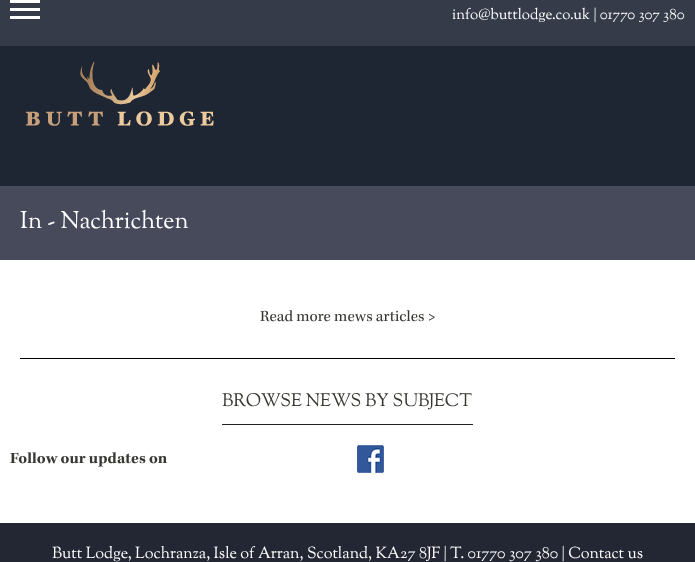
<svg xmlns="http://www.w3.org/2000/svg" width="695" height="562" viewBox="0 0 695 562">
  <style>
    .t1 { font: 500 15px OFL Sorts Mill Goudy; fill: #fff; }
    .t2 { font: 500 24px OFL Sorts Mill Goudy; fill: #fff; }
    .t3 { font: 16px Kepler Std; fill: #373832; }
    .t4 { font: 500 18px OFL Sorts Mill Goudy; fill: #373832; }
    .t5 { font: bold 16px Kepler Std; fill: #373832; }
    .t6 { font: 500 16px OFL Sorts Mill Goudy; fill: #fff; }
  </style>
  <rect width="100%" height="100%" fill="#fff"/>
  <rect x="0" y="46" width="695" height="140" fill="#1e2533"/>
  <rect x="0" y="0" width="695" height="46" fill="#353b48"/>
  <rect x="10" y="0" width="30" height="3" fill="#fff"/>
  <rect x="10" y="8" width="30" height="3" fill="#fff"/>
  <rect x="10" y="16" width="30" height="3" fill="#fff"/>
  <text x="452" y="19" class="t1">info@buttlodge.co.uk | 01770 307 380</text>
  <image x="25" y="61" width="189" height="65" href="images/1.png"/>
  <rect x="0" y="186" width="695" height="74" fill="#464a5b"/>
  <text x="20" y="228" class="t2">In - Nachrichten</text>
  <text x="260" y="321" class="t3">Read more mews articles &gt;</text>
  <rect x="20" y="358" width="655" height="1" fill="#000"/>
  <rect x="222" y="424" width="251" height="1" fill="#222"/>
  <text x="222" y="406" class="t4">BROWSE NEWS BY SUBJECT</text>
  <text x="10" y="463" class="t5">Follow our updates on</text>
  <image x="357" y="445" width="27" height="28" href="images/2.png"/>
  <rect x="0" y="523" width="695" height="39" fill="#222733"/>
  <text x="52" y="558" class="t6">Butt Lodge, Lochranza, Isle of Arran, Scotland, KA27 8JF | T. 01770 307 380 | Contact us</text>
</svg>
